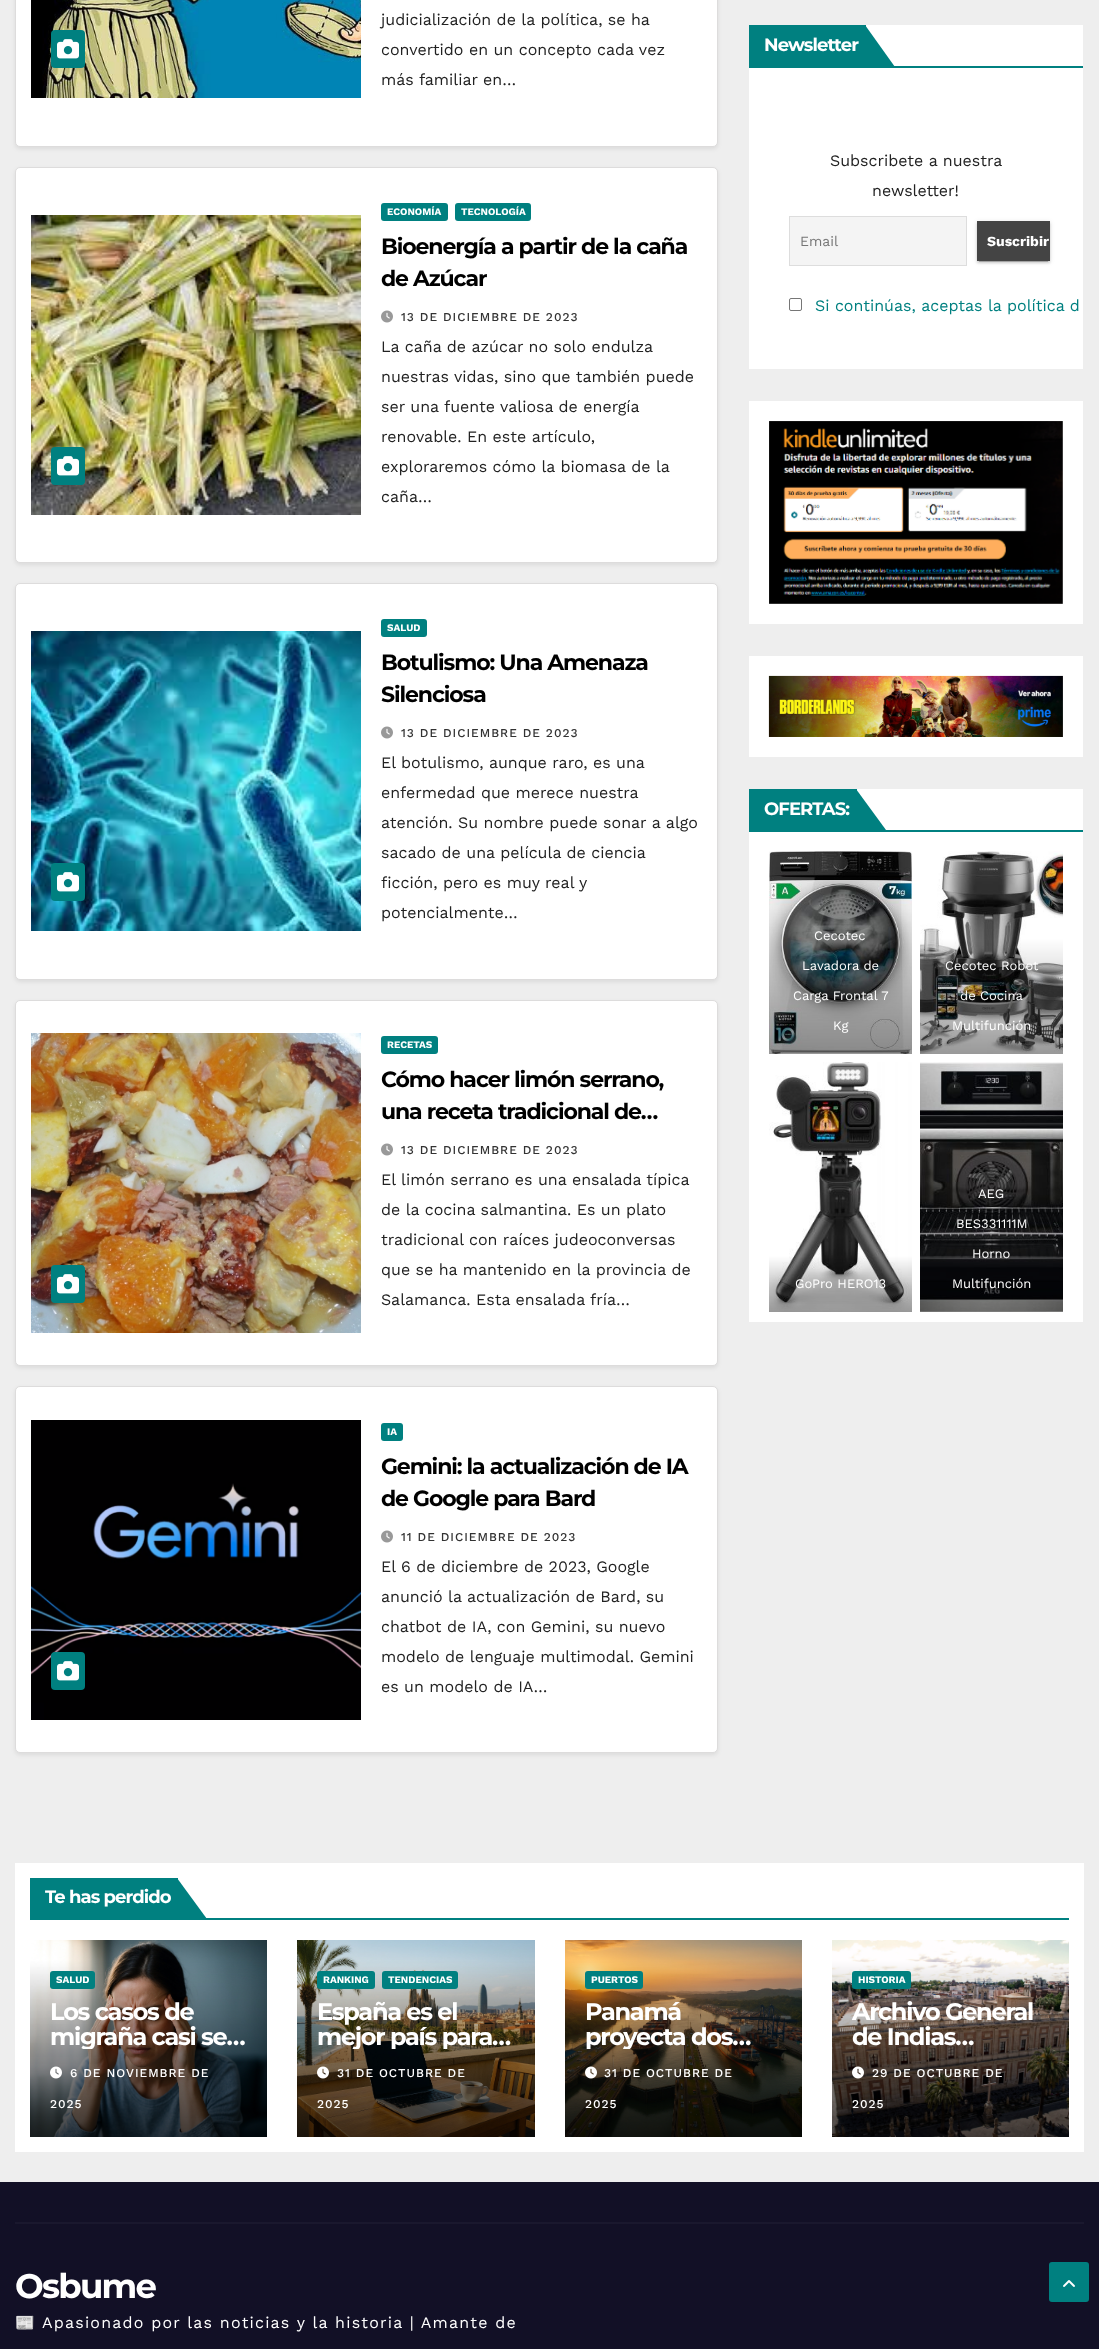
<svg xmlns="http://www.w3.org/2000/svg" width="1099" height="2349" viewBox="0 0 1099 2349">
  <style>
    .t1 { font: 16px Work Sans; fill: #222; }
    .t2 { font: bold 10px Work Sans; fill: #fff; }
    .t3 { font: bold 22px Montserrat; letter-spacing: -1.1px; fill: #000; }
    .t4 { font: 500 12px Work Sans; letter-spacing: 1px; fill: #333; }
    .t5 { font: bold 18px Montserrat; letter-spacing: -0.9px; fill: #fff; }
    .t6 { font: 14px Work Sans; fill: #757575; }
    .t7 { font: bold 14px Work Sans; fill: #fff; }
    .t8 { font: 16px Work Sans; fill: #008080; }
    .t9 { font: 13px Work Sans; fill: #fff; }
    .t10 { font: bold 24px Montserrat; letter-spacing: -1.25px; fill: #fff; }
    .t11 { font: 500 12px Work Sans; letter-spacing: 1px; fill: #fff; }
    .t12 { font: bold 34px Montserrat; letter-spacing: -1.75px; fill: #fff; }
    .t13 { font: 16px Noto Color Emoji; letter-spacing: 1.2px; fill: #fff; }
    .t14 { font: 16px Work Sans; letter-spacing: 1.2px; fill: #fff; }
  </style>
  <defs>
    <clipPath id="clip1"><rect x="50" y="1999" width="197" height="50"/></clipPath>
    <clipPath id="clip2"><rect x="317" y="1999" width="198" height="50"/></clipPath>
    <clipPath id="clip3"><rect x="585" y="1999" width="197" height="50"/></clipPath>
  </defs>
  <rect width="100%" height="100%" fill="#eee"/>
  <rect x="15" y="-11" width="703" height="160" rx="5" fill="#00000014" filter="blur(2px)"/>
  <rect x="15.5" y="-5.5" width="702" height="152" rx="4.5" fill="#fff" stroke="#dddcdc"/>
  <image x="31" y="0" width="330" height="98" href="images/1.png"/>
  <rect x="51" y="30" width="34" height="38" rx="4" fill="#008080"/>
  <image x="57" y="39" width="22" height="20" href="images/2.png"/>
  <text x="381" y="25" class="t1">judicialización de la política, se ha</text>
  <text x="381" y="55" class="t1">convertido en un concepto cada vez</text>
  <text x="381" y="85" class="t1">más familiar en…</text>
  <rect x="15" y="169" width="703" height="396" rx="5" fill="#00000014" filter="blur(2px)"/>
  <rect x="15.5" y="167.5" width="702" height="395" rx="4.5" fill="#fff" stroke="#dddcdc"/>
  <image x="31" y="215" width="330" height="300" href="images/3.png"/>
  <rect x="51" y="447" width="34" height="38" rx="4" fill="#008080"/>
  <image x="57" y="456" width="22" height="20" href="images/2.png"/>
  <rect x="381" y="203" width="67" height="18" rx="3" fill="#008080"/>
  <text x="387" y="215" class="t2">ECONOMÍA</text>
  <rect x="455" y="203" width="76" height="18" rx="3" fill="#008080"/>
  <text x="461" y="215" class="t2">TECNOLOGÍA</text>
  <text x="381" y="254" class="t3">Bioenergía a partir de la caña</text>
  <text x="381" y="286" class="t3">de Azúcar</text>
  <image x="381" y="310" width="12" height="13" href="images/4.png"/>
  <text x="401" y="321" class="t4">13 DE DICIEMBRE DE 2023</text>
  <text x="381" y="352" class="t1">La caña de azúcar no solo endulza</text>
  <text x="381" y="382" class="t1">nuestras vidas, sino que también puede</text>
  <text x="381" y="412" class="t1">ser una fuente valiosa de energía</text>
  <text x="381" y="442" class="t1">renovable. En este artículo,</text>
  <text x="381" y="472" class="t1">exploraremos cómo la biomasa de la</text>
  <text x="381" y="502" class="t1">caña…</text>
  <rect x="15" y="585" width="703" height="397" rx="5" fill="#00000014" filter="blur(2px)"/>
  <rect x="15.5" y="583.5" width="702" height="396" rx="4.5" fill="#fff" stroke="#dddcdc"/>
  <image x="31" y="631" width="330" height="300" href="images/5.png"/>
  <rect x="51" y="863" width="34" height="38" rx="4" fill="#008080"/>
  <image x="57" y="872" width="22" height="20" href="images/2.png"/>
  <rect x="381" y="619" width="46" height="18" rx="3" fill="#008080"/>
  <text x="387" y="631" class="t2">SALUD</text>
  <text x="381" y="670" class="t3">Botulismo: Una Amenaza</text>
  <text x="381" y="702" class="t3">Silenciosa</text>
  <image x="381" y="726" width="12" height="13" href="images/4.png"/>
  <text x="401" y="737" class="t4">13 DE DICIEMBRE DE 2023</text>
  <text x="381" y="768" class="t1">El botulismo, aunque raro, es una</text>
  <text x="381" y="798" class="t1">enfermedad que merece nuestra</text>
  <text x="381" y="828" class="t1">atención. Su nombre puede sonar a algo</text>
  <text x="381" y="858" class="t1">sacado de una película de ciencia</text>
  <text x="381" y="888" class="t1">ficción, pero es muy real y</text>
  <text x="381" y="918" class="t1">potencialmente…</text>
  <rect x="15" y="1002" width="703" height="366" rx="5" fill="#00000014" filter="blur(2px)"/>
  <rect x="15.5" y="1000.5" width="702" height="365" rx="4.5" fill="#fff" stroke="#dddcdc"/>
  <image x="31" y="1033" width="330" height="300" href="images/6.png"/>
  <rect x="51" y="1265" width="34" height="38" rx="4" fill="#008080"/>
  <image x="57" y="1274" width="22" height="20" href="images/2.png"/>
  <rect x="381" y="1036" width="57" height="18" rx="3" fill="#008080"/>
  <text x="387" y="1048" class="t2">RECETAS</text>
  <text x="381" y="1087" class="t3">Cómo hacer limón serrano,</text>
  <text x="381" y="1119" class="t3">una receta tradicional de…</text>
  <image x="381" y="1143" width="12" height="13" href="images/4.png"/>
  <text x="401" y="1154" class="t4">13 DE DICIEMBRE DE 2023</text>
  <text x="381" y="1185" class="t1">El limón serrano es una ensalada típica</text>
  <text x="381" y="1215" class="t1">de la cocina salmantina. Es un plato</text>
  <text x="381" y="1245" class="t1">tradicional con raíces judeoconversas</text>
  <text x="381" y="1275" class="t1">que se ha mantenido en la provincia de</text>
  <text x="381" y="1305" class="t1">Salamanca. Esta ensalada fría…</text>
  <rect x="15" y="1388" width="703" height="367" rx="5" fill="#00000014" filter="blur(2px)"/>
  <rect x="15.5" y="1386.5" width="702" height="366" rx="4.5" fill="#fff" stroke="#dddcdc"/>
  <image x="31" y="1420" width="330" height="300" href="images/7.png"/>
  <rect x="51" y="1652" width="34" height="38" rx="4" fill="#008080"/>
  <image x="57" y="1661" width="22" height="20" href="images/2.png"/>
  <rect x="381" y="1423" width="22" height="18" rx="3" fill="#008080"/>
  <text x="387" y="1435" class="t2">IA</text>
  <text x="381" y="1474" class="t3">Gemini: la actualización de IA</text>
  <text x="381" y="1506" class="t3">de Google para Bard</text>
  <image x="381" y="1530" width="12" height="13" href="images/4.png"/>
  <text x="401" y="1541" class="t4">11 DE DICIEMBRE DE 2023</text>
  <text x="381" y="1572" class="t1">El 6 de diciembre de 2023, Google</text>
  <text x="381" y="1602" class="t1">anunció la actualización de Bard, su</text>
  <text x="381" y="1632" class="t1">chatbot de IA, con Gemini, su nuevo</text>
  <text x="381" y="1662" class="t1">modelo de lenguaje multimodal. Gemini</text>
  <text x="381" y="1692" class="t1">es un modelo de IA…</text>
  <rect x="749" y="25" width="334" height="344" fill="#fff"/>
  <rect x="749" y="25" width="117" height="41" fill="#008080"/>
  <text x="764" y="51" class="t5">Newsletter</text>
  <path d="M865 25V67H895Z" fill="#008080"/>
  <rect x="749" y="66" width="334" height="2" fill="#008080"/>
  <text x="830" y="166" class="t1">Subscribete a nuestra</text>
  <text x="872" y="196" class="t1">newsletter!</text>
  <rect x="789.5" y="216.5" width="177" height="49" fill="#f4f4f4" stroke="#ddd"/>
  <text x="800" y="246" class="t6">Email</text>
  <rect x="977" y="222" width="73" height="40" fill="#0000001f" filter="blur(2.5px)"/>
  <rect x="979" y="226" width="69" height="36" fill="#00000033" filter="blur(0.5px)"/>
  <rect x="977" y="223" width="73" height="40" fill="#00000024" filter="blur(1px)"/>
  <rect x="977" y="221" width="73" height="40" fill="#444"/>
  <text x="987" y="246" class="t7">Suscribir</text>
  <rect x="789.5" y="298.5" width="12" height="12" rx="1.5" fill="none" stroke="#767676"/>
  <text x="815" y="311" class="t8">Si continúas, aceptas la política d</text>
  <rect x="749" y="401" width="334" height="223" fill="#fff"/>
  <image x="769" y="421" width="294" height="183" href="images/8.png"/>
  <rect x="749" y="656" width="334" height="101" fill="#fff"/>
  <image x="768" y="675" width="295" height="62" href="images/9.png"/>
  <rect x="749" y="789" width="334" height="533" fill="#fff"/>
  <rect x="749" y="789" width="108" height="41" fill="#008080"/>
  <text x="764" y="815" class="t5">OFERTAS:</text>
  <path d="M856 789V830H886Z" fill="#008080"/>
  <rect x="749" y="830" width="334" height="2" fill="#008080"/>
  <image x="769" y="851" width="143" height="203" href="images/10.png"/>
  <text x="814" y="940" class="t9">Cecotec</text>
  <text x="802" y="970" class="t9">Lavadora de</text>
  <text x="793" y="1000" class="t9">Carga Frontal 7</text>
  <text x="833" y="1030" class="t9">Kg</text>
  <image x="920" y="851" width="143" height="203" href="images/11.png"/>
  <text x="945" y="970" class="t9">Cecotec Robot</text>
  <text x="960" y="1000" class="t9">de Cocina</text>
  <text x="952" y="1030" class="t9">Multifunción</text>
  <image x="769" y="1062" width="143" height="250" href="images/12.png"/>
  <text x="795" y="1288" class="t9">GoPro HERO13</text>
  <image x="920" y="1062" width="143" height="250" href="images/13.png"/>
  <text x="978" y="1198" class="t9">AEG</text>
  <text x="956" y="1228" class="t9">BES331111M</text>
  <text x="972" y="1258" class="t9">Horno</text>
  <text x="952" y="1288" class="t9">Multifunción</text>
  <rect x="15" y="1863" width="1069" height="289" fill="#fff"/>
  <rect x="30" y="1918" width="1039" height="2" fill="#008080"/>
  <rect x="30" y="1878" width="148" height="40" fill="#008080"/>
  <text x="45" y="1903" class="t5">Te has perdido</text>
  <path d="M177 1878V1919H207Z" fill="#008080"/>
  <image x="30" y="1940" width="237" height="197" href="images/14.png"/>
  <rect x="50" y="1971" width="45" height="18" rx="3" fill="#008080"/>
  <text x="56" y="1983" class="t2">SALUD</text>
  <text x="50" y="2020" class="t10">Los casos de</text>
  <g clip-path="url(#clip1)">
    <text x="50" y="2045" class="t10">migraña casi se…</text>
  </g>
  <image x="50" y="2066" width="12" height="13" href="images/15.png"/>
  <text x="70" y="2077" class="t11">6 DE NOVIEMBRE DE</text>
  <text x="50" y="2108" class="t11">2025</text>
  <image x="297" y="1940" width="238" height="197" href="images/16.png"/>
  <rect x="317" y="1971" width="58" height="18" rx="3" fill="#008080"/>
  <text x="323" y="1983" class="t2">RANKING</text>
  <rect x="382" y="1971" width="76" height="18" rx="3" fill="#008080"/>
  <text x="388" y="1983" class="t2">TENDENCIAS</text>
  <text x="317" y="2020" class="t10">España es el</text>
  <g clip-path="url(#clip2)">
    <text x="317" y="2045" class="t10">mejor país para…</text>
  </g>
  <image x="317" y="2066" width="12" height="13" href="images/17.png"/>
  <text x="337" y="2077" class="t11">31 DE OCTUBRE DE</text>
  <text x="317" y="2108" class="t11">2025</text>
  <image x="565" y="1940" width="237" height="197" href="images/18.png"/>
  <rect x="585" y="1971" width="58" height="18" rx="3" fill="#008080"/>
  <text x="591" y="1983" class="t2">PUERTOS</text>
  <text x="585" y="2020" class="t10">Panamá</text>
  <g clip-path="url(#clip3)">
    <text x="585" y="2045" class="t10">proyecta dos…</text>
  </g>
  <image x="585" y="2066" width="12" height="13" href="images/19.png"/>
  <text x="604" y="2077" class="t11">31 DE OCTUBRE DE</text>
  <text x="585" y="2108" class="t11">2025</text>
  <image x="832" y="1940" width="237" height="197" href="images/20.png"/>
  <rect x="852" y="1971" width="59" height="18" rx="3" fill="#008080"/>
  <text x="858" y="1983" class="t2">HISTORIA</text>
  <text x="852" y="2020" class="t10">Archivo General</text>
  <text x="852" y="2045" class="t10">de Indias…</text>
  <image x="852" y="2066" width="12" height="13" href="images/21.png"/>
  <text x="872" y="2077" class="t11">29 DE OCTUBRE DE</text>
  <text x="852" y="2108" class="t11">2025</text>
  <rect x="0" y="2182" width="1099" height="167" fill="#121026"/>
  <rect x="15" y="2222" width="1069" height="2" fill="#1a182e"/>
  <text x="15" y="2298" class="t12">Osbume</text>
  <text x="15" y="2328" class="t13">📰</text>
  <text x="42" y="2328" class="t14">Apasionado por las noticias y la historia | Amante de</text>
  <rect x="1050" y="2263" width="38" height="38" rx="2" fill="#008080" stroke="#008080" stroke-width="2"/>
  <image x="1063" y="2280" width="12" height="7" href="images/22.png"/>
</svg>
